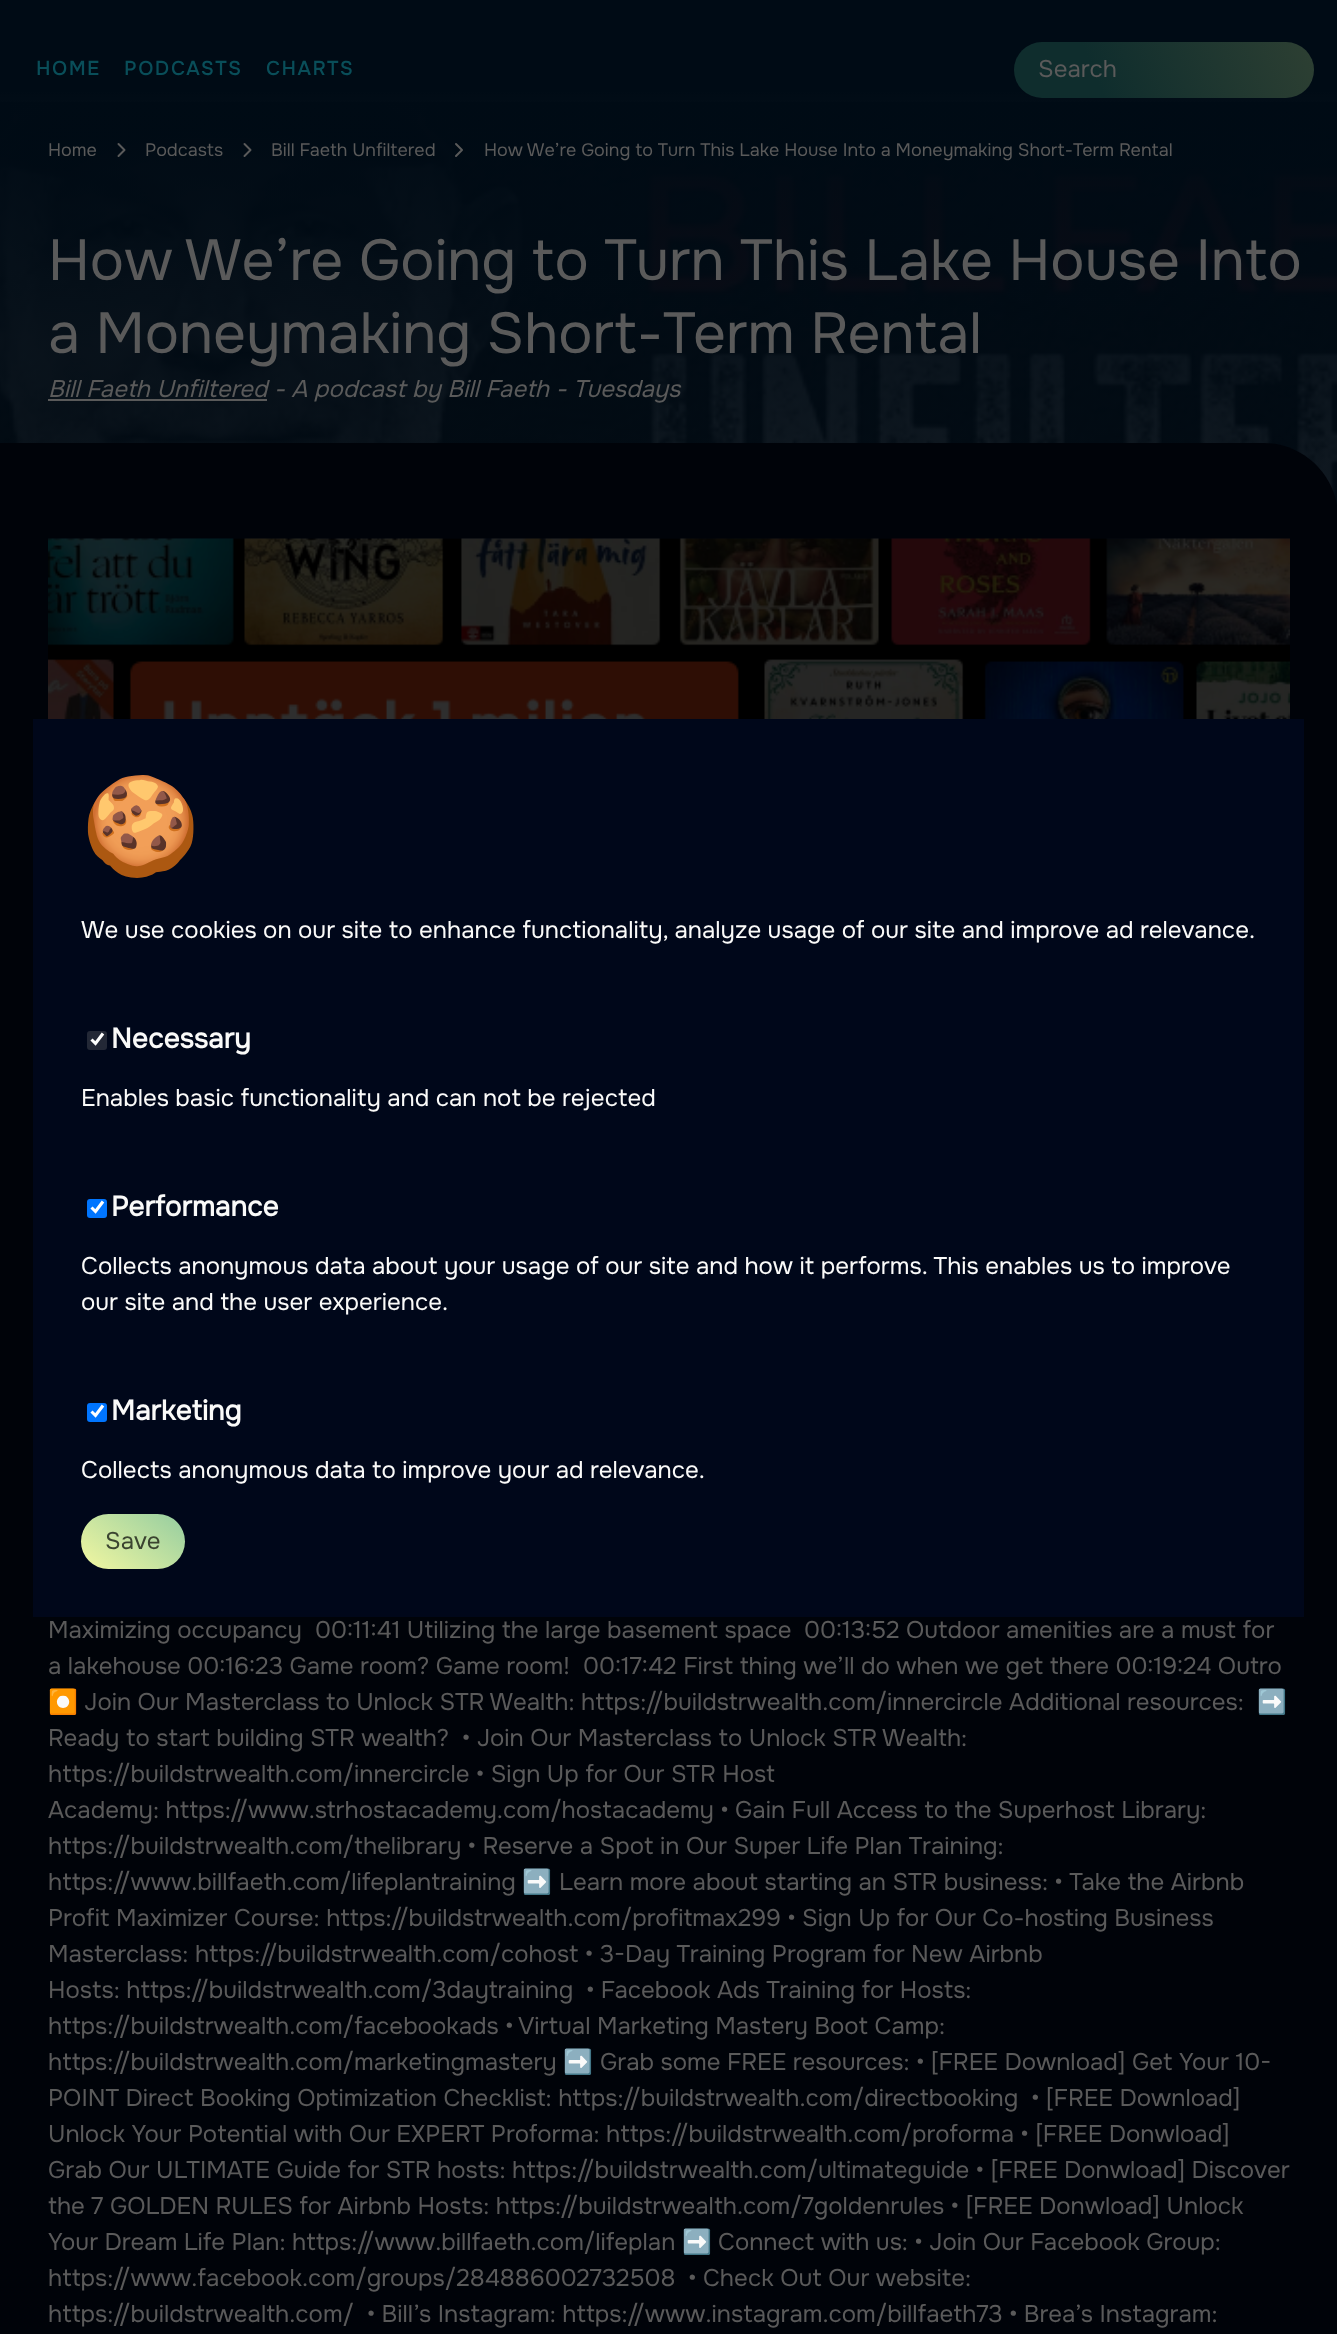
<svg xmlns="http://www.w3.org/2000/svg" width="1337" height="2334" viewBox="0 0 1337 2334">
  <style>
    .t1 { font: bold 19.25px Onest; letter-spacing: 2px; fill: #094e59; }
    .t2 { font: 24px Onest; fill: #5a5a5a; }
    .t3 { font: 18px Onest; fill: #5a5a5a; }
    .t4 { font: 57.6px Onest; fill: #5a5a5a; }
    .t5 { font: italic 24px Onest; fill: #5a5a5a; }
    .t6 { font: 24px Noto Color Emoji; fill: #5a5a5a; }
    .t7 { font: bold 96px Noto Color Emoji; fill: #fafaf9; }
    .t8 { font: 24px Onest; fill: #fafaf9; }
    .t9 { font: bold 28px Onest; fill: #fafaf9; }
    .t10 { font: 24px Onest; fill: #3b4430; }
  </style>
  <defs>
    <linearGradient id="g1" gradientUnits="userSpaceOnUse" x1="669" y1="0" x2="669" y2="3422"><stop offset="0.03" stop-color="#000b15"/><stop offset="0.15" stop-color="#01070c"/><stop offset="0.5" stop-color="#000309"/></linearGradient>
    <linearGradient id="g2" gradientUnits="userSpaceOnUse" x1="669" y1="90" x2="669" y2="2334"><stop offset="0" stop-color="#000b15"/><stop offset="0.9" stop-color="#000b15" stop-opacity="0"/><stop offset="1" stop-color="#5c0000" stop-opacity="0"/></linearGradient>
    <linearGradient id="g3" gradientUnits="userSpaceOnUse" x1="1025" y1="126" x2="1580" y2="-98"><stop offset="0.14" stop-color="#0f2d2d"/><stop offset="1" stop-color="#57593a"/></linearGradient>
    <linearGradient id="g4" gradientUnits="userSpaceOnUse" x1="229" y1="1413" x2="101" y2="1583"><stop offset="0" stop-color="#35a29f"/><stop offset="1" stop-color="#f2f7a1"/></linearGradient>
  </defs>
  <rect width="100%" height="100%" fill="#fff"/>
  <rect x="0" y="0" width="1337" height="90" fill="url(#g1)"/>
  <text x="36" y="75" class="t1">HOME</text>
  <text x="124" y="75" class="t1">PODCASTS</text>
  <text x="266" y="75" class="t1">CHARTS</text>
  <image x="0" y="102" width="1337" height="404" href="images/1.png"/>
  <rect x="0" y="90" width="1337" height="416" fill="url(#g2)"/>
  <rect x="1014" y="42" width="300" height="56" rx="28" fill="url(#g3)"/>
  <text x="1038" y="77" class="t2">Search</text>
  <text x="48" y="156" class="t3">Home</text>
  <path d="M118.5 156L124.5 150L118.5 144" fill="none" stroke="#5a5a5a" stroke-width="2" stroke-linecap="round" stroke-linejoin="round"/>
  <text x="145" y="156" class="t3">Podcasts</text>
  <path d="M244.5 156L250.5 150L244.5 144" fill="none" stroke="#5a5a5a" stroke-width="2" stroke-linecap="round" stroke-linejoin="round"/>
  <text x="271" y="156" class="t3">Bill Faeth Unfiltered</text>
  <path d="M456 156L462 150L456 144" fill="none" stroke="#5a5a5a" stroke-width="2" stroke-linecap="round" stroke-linejoin="round"/>
  <text x="484" y="156" class="t3">How We’re Going to Turn This Lake House Into a Moneymaking Short-Term Rental</text>
  <path d="M0 443H1263C1304.5 443 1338 476.5 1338 518V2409H0Z" fill="#000309"/>
  <text x="48" y="280" class="t4">How We’re Going to Turn This Lake House Into</text>
  <text x="48" y="353" class="t4">a Moneymaking Short-Term Rental</text>
  <rect x="48" y="399" width="219" height="2" fill="#5a5a5a"/>
  <text x="48" y="397" class="t5">Bill Faeth Unfiltered - A podcast by Bill Faeth - Tuesdays</text>
  <image x="48" y="538" width="1242" height="181" href="images/2.png"/>
  <rect x="48" y="539" width="1242" height="180" fill="#00000080"/>
  <text x="48" y="1638" class="t2">Maximizing occupancy</text>
  <text x="315" y="1638" class="t2">00:11:41 Utilizing the large basement space</text>
  <text x="804" y="1638" class="t2">00:13:52 Outdoor amenities are a must for</text>
  <text x="48" y="1674" class="t2">a lakehouse 00:16:23 Game room? Game room!</text>
  <text x="583" y="1674" class="t2">00:17:42 First thing we’ll do when we get there 00:19:24 Outro</text>
  <text x="48" y="1710" class="t6">⏺️</text>
  <text x="84" y="1710" class="t2">Join Our Masterclass to Unlock STR Wealth: https://buildstrwealth.com/innercircle Additional resources:</text>
  <text x="1257" y="1710" class="t6">➡️</text>
  <text x="48" y="1746" class="t2">Ready to start building STR wealth?</text>
  <text x="462" y="1746" class="t2">• Join Our Masterclass to Unlock STR Wealth:</text>
  <text x="48" y="1782" class="t2">https://buildstrwealth.com/innercircle • Sign Up for Our STR Host</text>
  <text x="48" y="1818" class="t2">Academy: https://www.strhostacademy.com/hostacademy • Gain Full Access to the Superhost Library:</text>
  <text x="48" y="1854" class="t2">https://buildstrwealth.com/thelibrary • Reserve a Spot in Our Super Life Plan Training:</text>
  <text x="48" y="1890" class="t2">https://www.billfaeth.com/lifeplantraining</text>
  <text x="522" y="1890" class="t6">➡️</text>
  <text x="559" y="1890" class="t2">Learn more about starting an STR business: • Take the Airbnb</text>
  <text x="48" y="1926" class="t2">Profit Maximizer Course: https://buildstrwealth.com/profitmax299 • Sign Up for Our Co-hosting Business</text>
  <text x="48" y="1962" class="t2">Masterclass: https://buildstrwealth.com/cohost • 3-Day Training Program for New Airbnb</text>
  <text x="48" y="1998" class="t2" xml:space="preserve">Hosts: https://buildstrwealth.com/3daytraining  • Facebook Ads Training for Hosts:</text>
  <text x="48" y="2034" class="t2">https://buildstrwealth.com/facebookads • Virtual Marketing Mastery Boot Camp:</text>
  <text x="48" y="2070" class="t2">https://buildstrwealth.com/marketingmastery</text>
  <text x="563" y="2070" class="t6">➡️</text>
  <text x="600" y="2070" class="t2">Grab some FREE resources: • [FREE Download] Get Your 10-</text>
  <text x="48" y="2106" class="t2" xml:space="preserve">POINT Direct Booking Optimization Checklist: https://buildstrwealth.com/directbooking  • [FREE Download]</text>
  <text x="48" y="2142" class="t2">Unlock Your Potential with Our EXPERT Proforma: https://buildstrwealth.com/proforma • [FREE Donwload]</text>
  <text x="48" y="2178" class="t2">Grab Our ULTIMATE Guide for STR hosts: https://buildstrwealth.com/ultimateguide • [FREE Donwload] Discover</text>
  <text x="48" y="2214" class="t2">the 7 GOLDEN RULES for Airbnb Hosts: https://buildstrwealth.com/7goldenrules • [FREE Donwload] Unlock</text>
  <text x="48" y="2250" class="t2">Your Dream Life Plan: https://www.billfaeth.com/lifeplan</text>
  <text x="682" y="2250" class="t6">➡️</text>
  <text x="718" y="2250" class="t2">Connect with us: • Join Our Facebook Group:</text>
  <text x="48" y="2286" class="t2" xml:space="preserve">https://www.facebook.com/groups/284886002732508  • Check Out Our website:</text>
  <text x="48" y="2322" class="t2" xml:space="preserve">https://buildstrwealth.com/  • Bill’s Instagram: https://www.instagram.com/billfaeth73 • Brea’s Instagram:</text>
  <rect x="33" y="719" width="1271" height="898" fill="#00071a"/>
  <text x="81" y="859" class="t7">🍪</text>
  <text x="81" y="938" class="t8">We use cookies on our site to enhance functionality, analyze usage of our site and improve ad relevance.</text>
  <rect x="87" y="1031" width="20" height="19" rx="3" fill="#232836"/>
  <path d="M91.5 1039.5L95.5 1043.5L103 1033.5" fill="none" stroke="#fff" stroke-width="3.1"/>
  <text x="111" y="1048" class="t9">Necessary</text>
  <text x="81" y="1106" class="t8">Enables basic functionality and can not be rejected</text>
  <rect x="87" y="1199" width="20" height="19" rx="3" fill="#0075ff"/>
  <path d="M91.5 1207.5L95.5 1211.5L103 1201.5" fill="none" stroke="#fff" stroke-width="3.1"/>
  <text x="111" y="1216" class="t9">Performance</text>
  <text x="81" y="1274" class="t8">Collects anonymous data about your usage of our site and how it performs. This enables us to improve</text>
  <text x="81" y="1310" class="t8">our site and the user experience.</text>
  <rect x="87" y="1403" width="20" height="19" rx="3" fill="#0075ff"/>
  <path d="M91.5 1411.5L95.5 1415.5L103 1405.5" fill="none" stroke="#fff" stroke-width="3.1"/>
  <text x="111" y="1420" class="t9">Marketing</text>
  <text x="81" y="1478" class="t8">Collects anonymous data to improve your ad relevance.</text>
  <rect x="81" y="1514" width="104" height="55" rx="27.5" fill="url(#g4)"/>
  <text x="105" y="1549" class="t10">Save</text>
</svg>
